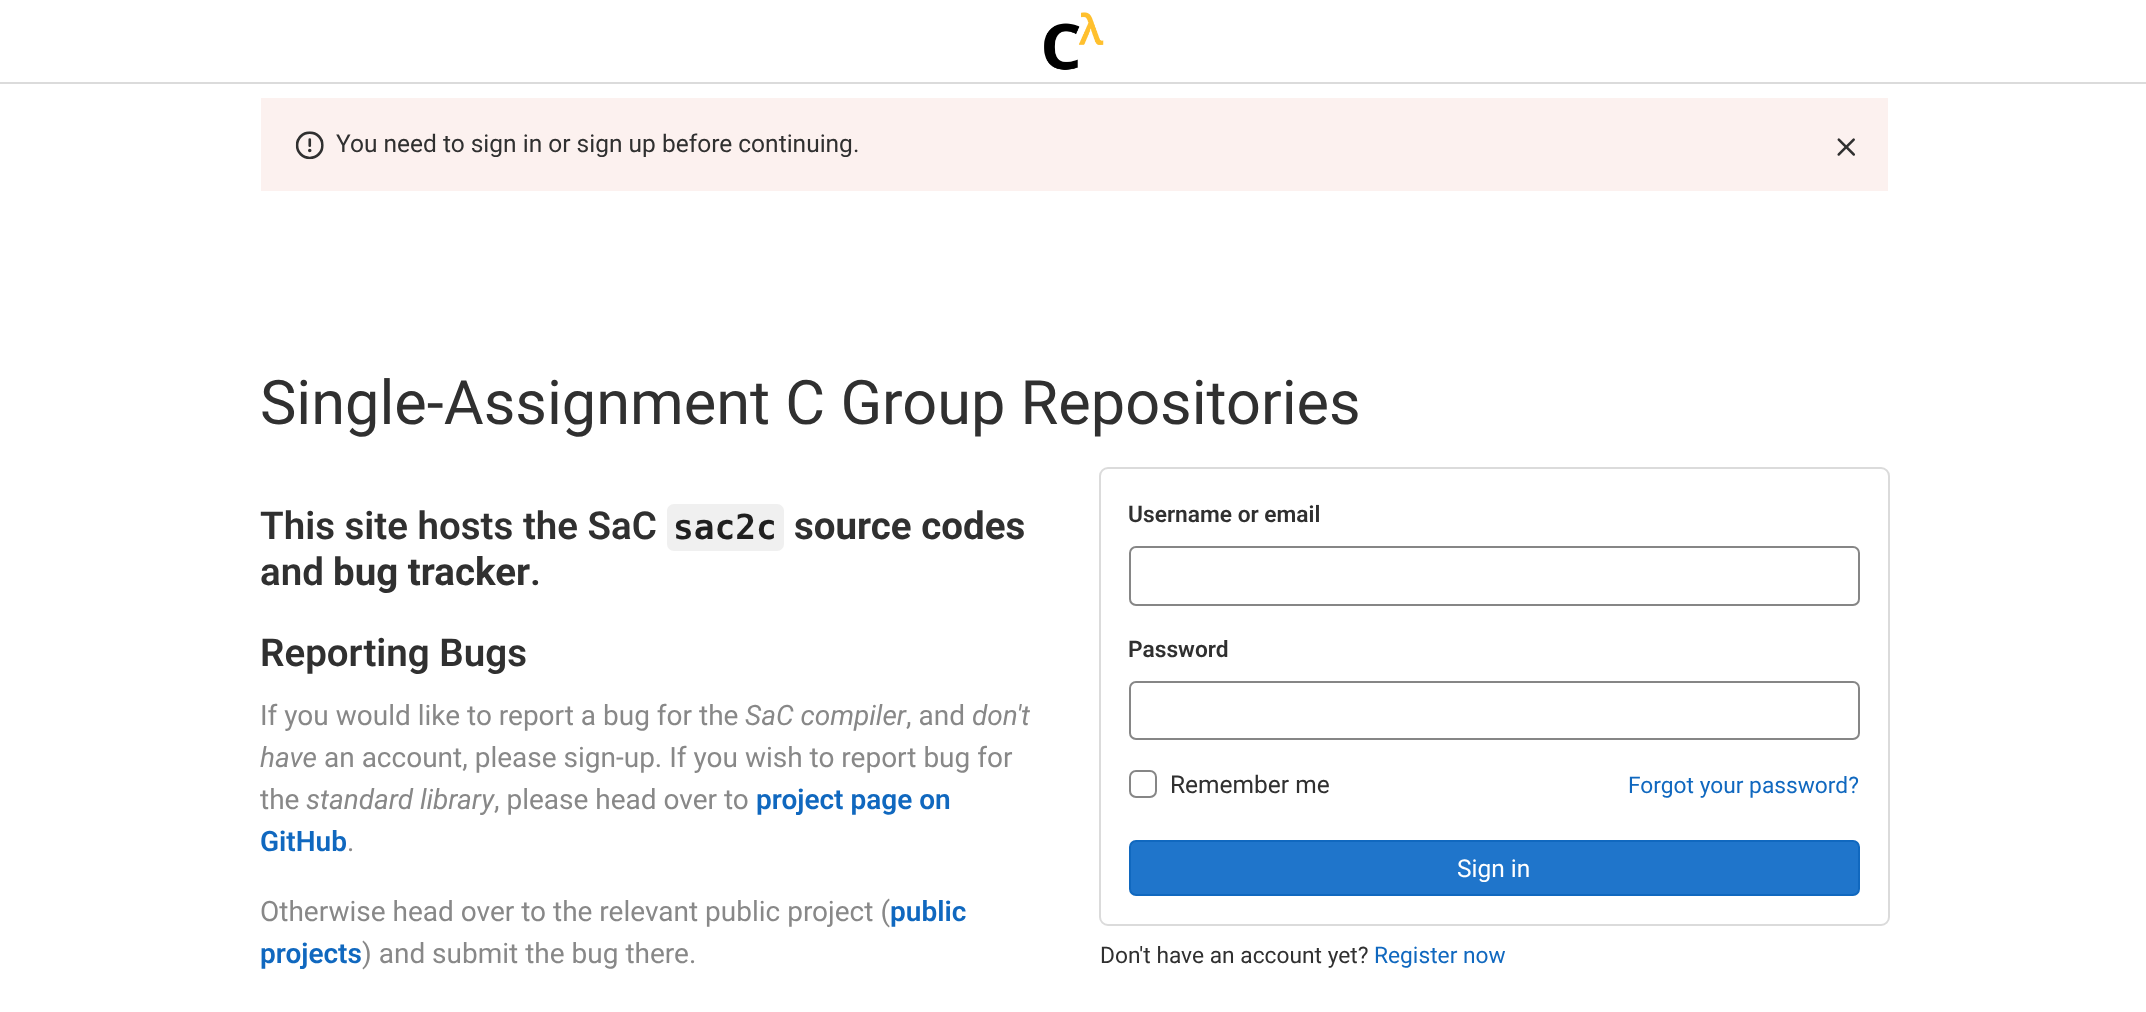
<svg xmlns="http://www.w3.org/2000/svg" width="2146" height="1012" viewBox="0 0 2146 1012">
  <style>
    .t1 { font: 24.5px Roboto; fill: #303030; }
    .t2 { font: 61.25px Roboto; fill: #303030; }
    .t3 { font: 600 38.5px Roboto; fill: #303030; }
    .t4 { font: bold 34.5px DejaVu Sans Mono; fill: #1f1f1f; }
    .t5 { font: bold 38.5px Roboto; fill: #303030; }
    .t6 { font: 28px Roboto; fill: #888; }
    .t7 { font: italic 28px Roboto; fill: #888; }
    .t8 { font: 600 28px Roboto; fill: #1068bf; }
    .t9 { font: 600 22.75px Roboto; fill: #303030; }
    .t10 { font: 22.75px Roboto; fill: #1068bf; }
    .t11 { font: 24.5px Roboto; fill: #fff; }
    .t12 { font: 22.75px Roboto; fill: #303030; }
  </style>
  <rect width="100%" height="100%" fill="#fff"/>
  <rect x="0" y="82" width="2146" height="2" fill="#dbdbdb"/>
  <image x="1044" y="12" width="60" height="58" href="images/1.png"/>
  <rect x="261" y="98" width="1627" height="93" fill="#fcf1ef"/>
  <image x="295" y="131" width="29" height="29" href="images/2.png"/>
  <text x="336" y="152" class="t1">You need to sign in or sign up before continuing.</text>
  <image x="1837" y="138" width="18" height="18" href="images/3.png"/>
  <text x="260" y="424" class="t2">Single-Assignment C Group Repositories</text>
  <text x="260" y="539" class="t3">This site hosts the SaC</text>
  <rect x="667" y="504" width="117" height="47" rx="7" fill="#f0f0f0"/>
  <text x="673" y="539" class="t4">sac2c</text>
  <text x="794" y="539" class="t5">source codes</text>
  <text x="260" y="585" class="t3">and</text>
  <text x="333" y="585" class="t5">bug tracker</text>
  <text x="530" y="585" class="t3">.</text>
  <text x="260" y="666" class="t3">Reporting Bugs</text>
  <text x="260" y="725" class="t6">If you would like to report a bug for the</text>
  <text x="745" y="725" class="t7">SaC compiler</text>
  <text x="906" y="725" class="t6">, and</text>
  <text x="972" y="725" class="t7">don't</text>
  <text x="260" y="767" class="t7">have</text>
  <text x="324" y="767" class="t6">an account, please sign-up. If you wish to report bug for</text>
  <text x="260" y="809" class="t6">the</text>
  <text x="306" y="809" class="t7">standard library</text>
  <text x="494" y="809" class="t6">, please head over to</text>
  <text x="756" y="809" class="t8">project page on</text>
  <text x="260" y="851" class="t8">GitHub</text>
  <text x="347" y="851" class="t6">.</text>
  <text x="260" y="921" class="t6">Otherwise head over to the relevant public project (</text>
  <text x="890" y="921" class="t8">public</text>
  <text x="260" y="963" class="t8">projects</text>
  <text x="362" y="963" class="t6">) and submit the bug there.</text>
  <rect x="1100" y="468" width="789" height="457" rx="8" fill="none" stroke="#dbdbdb" stroke-width="2"/>
  <text x="1128" y="522" class="t9">Username or email</text>
  <rect x="1130" y="547" width="729" height="58" rx="6" fill="none" stroke="#868686" stroke-width="2"/>
  <text x="1128" y="657" class="t9">Password</text>
  <rect x="1130" y="682" width="729" height="57" rx="6" fill="none" stroke="#868686" stroke-width="2"/>
  <rect x="1130" y="771" width="26" height="26" rx="6" fill="none" stroke="#868686" stroke-width="2"/>
  <text x="1170" y="793" class="t1">Remember me</text>
  <text x="1628" y="793" class="t10">Forgot your password?</text>
  <rect x="1130" y="841" width="729" height="54" rx="6" fill="#1f75cb" stroke="#1068bf" stroke-width="2"/>
  <text x="1457" y="877" class="t11">Sign in</text>
  <text x="1100" y="963" class="t12">Don't have an account yet?</text>
  <text x="1374" y="963" class="t10">Register now</text>
</svg>
